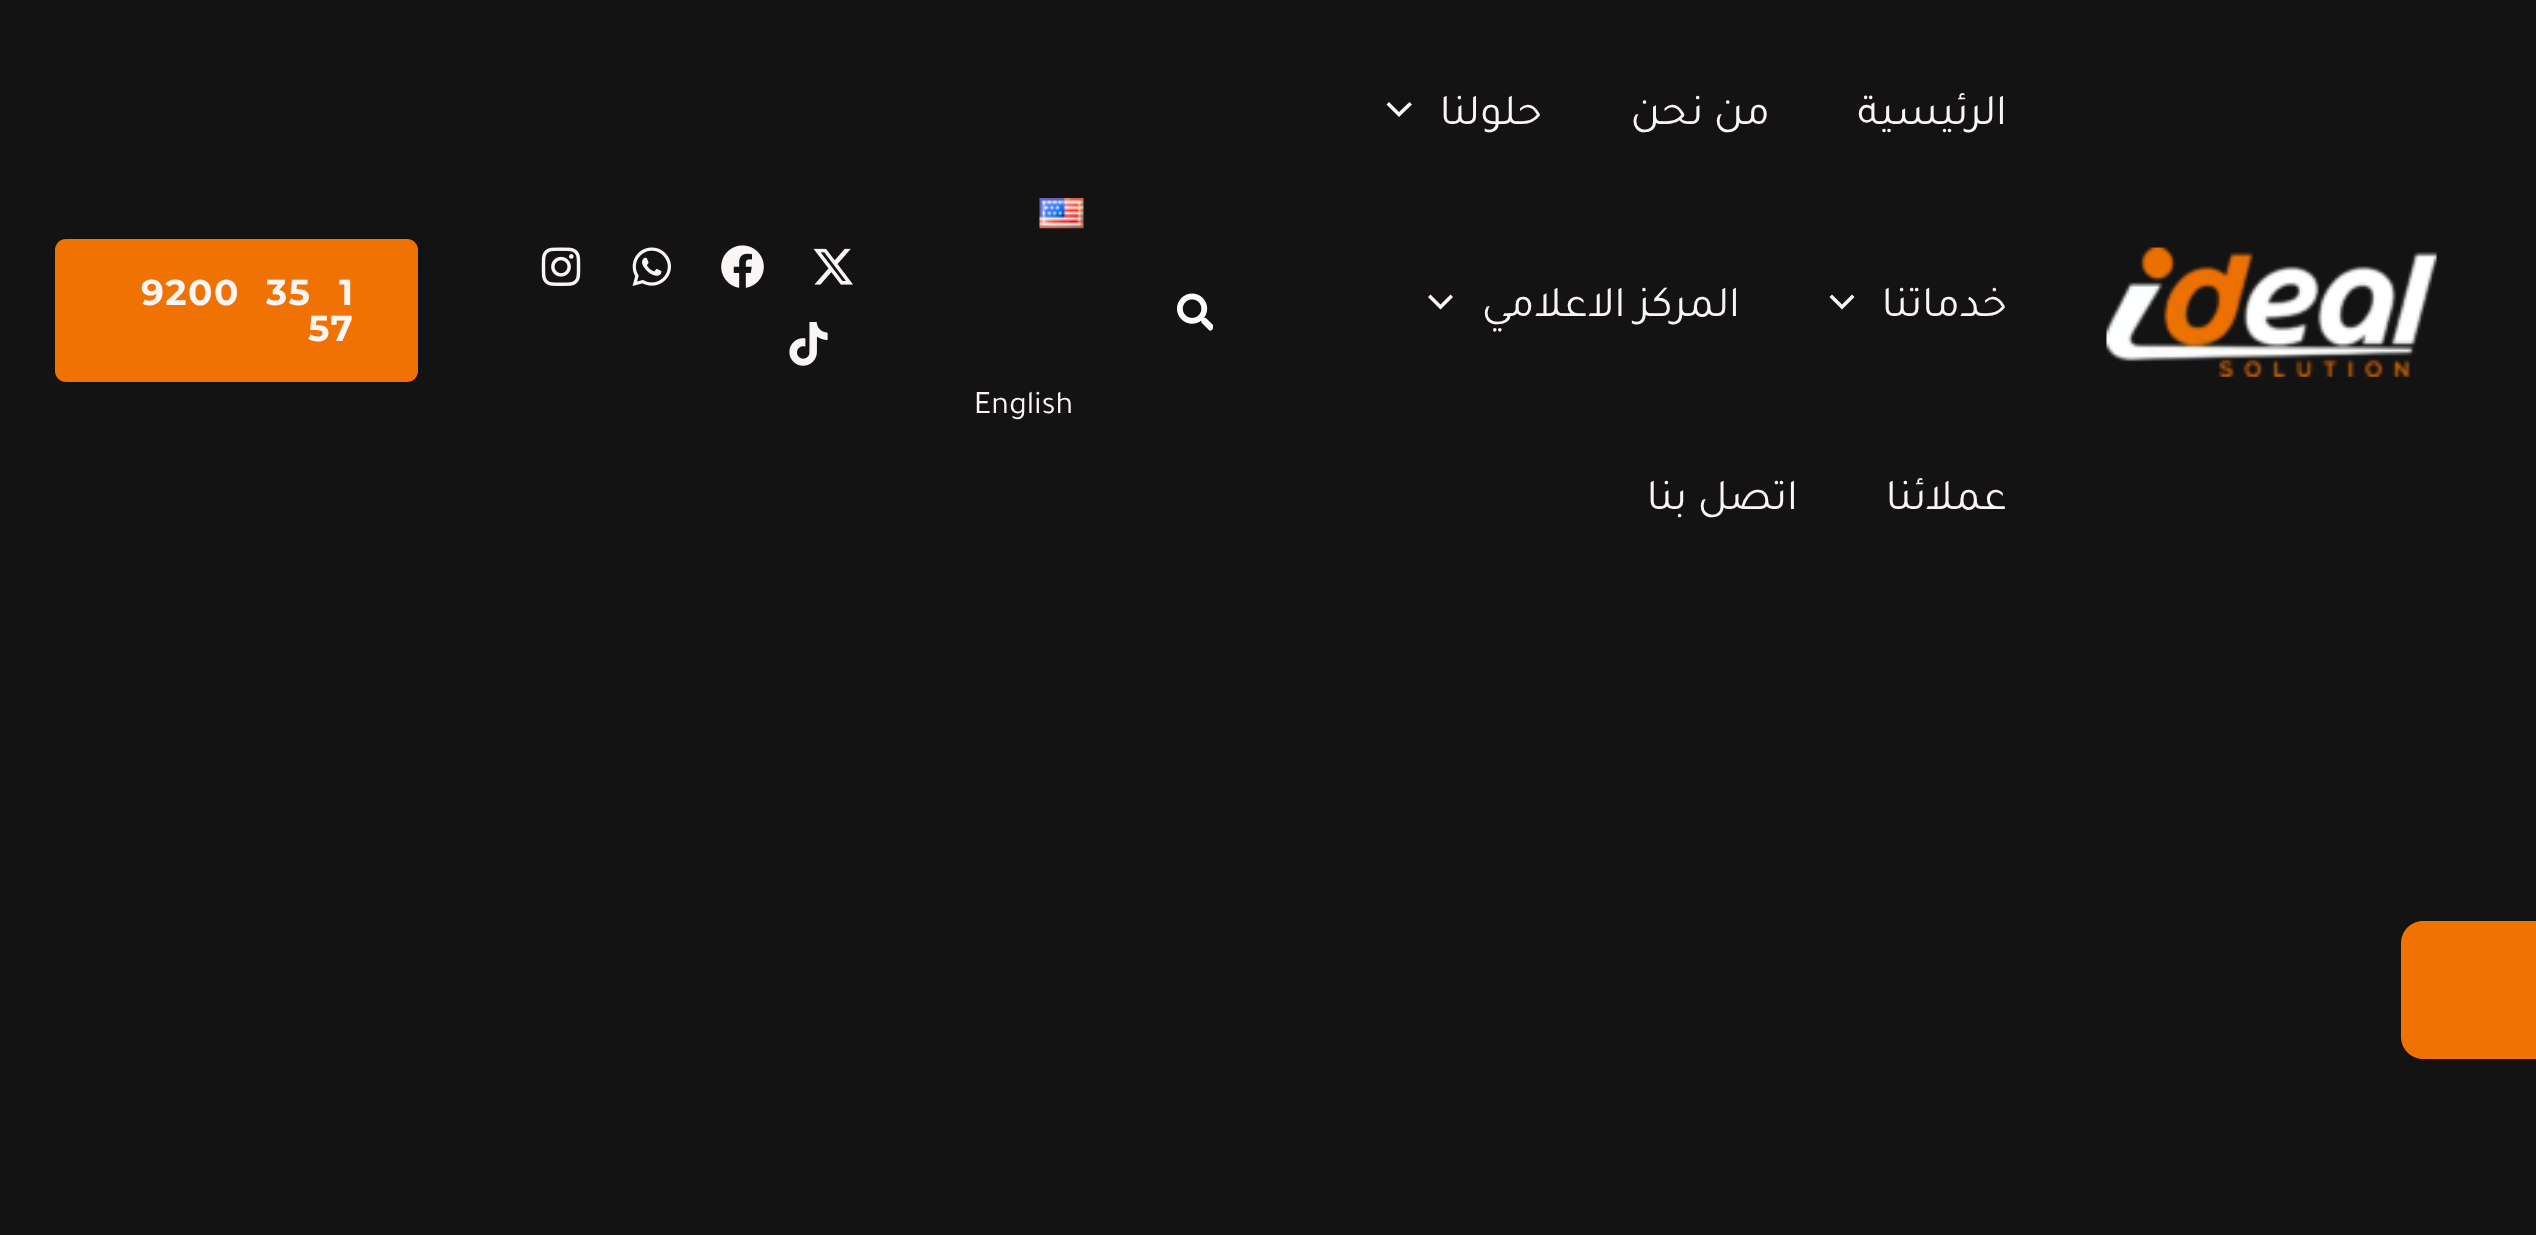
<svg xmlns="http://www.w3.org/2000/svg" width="2536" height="1235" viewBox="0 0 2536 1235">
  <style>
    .t1 { font: 44px Tajawal; direction: rtl; fill: #f8f5f4; }
    .t2 { font: bold 36px Montserrat; letter-spacing: 1.5px; fill: #f8f5f4; }
    .t3 { font: 33px Tajawal; fill: #f8f5f4; }
  </style>
  <rect width="100%" height="100%" fill="#131313"/>
  <image x="2106" y="247" width="331" height="130" href="images/1.png"/>
  <text x="2007" y="124" class="t1">الرئيسية</text>
  <text x="1770" y="124" class="t1">من نحن</text>
  <text x="1542" y="124" class="t1">حلولنا</text>
  <path d="M1386.5 104.5L1399 117L1412 104.5L1409.5 102L1399 112L1389 102Z" fill="#f8f5f4"/>
  <text x="2007" y="316" class="t1">خدماتنا</text>
  <path d="M1829.5 297L1842 309.5L1854.5 297L1852 294.5L1842 304.5L1832 294.5Z" fill="#f8f5f4"/>
  <text x="1740" y="316" class="t1">المركز الاعلامي</text>
  <path d="M1428 297L1440.5 309.5L1453 297L1450.5 294.5L1440.5 304.5L1430.5 294.5Z" fill="#f8f5f4"/>
  <text x="2007" y="509" class="t1">عملائنا</text>
  <text x="1798" y="509" class="t1">اتصل بنا</text>
  <image x="1177" y="293" width="36" height="38" href="images/2.png"/>
  <image x="813" y="248" width="40" height="37" href="images/3.png"/>
  <image x="721" y="245" width="43" height="43" href="images/4.png"/>
  <image x="632" y="247" width="39" height="39" href="images/5.png"/>
  <image x="541" y="247" width="40" height="39" href="images/6.png"/>
  <image x="789" y="322" width="39" height="44" href="images/7.png"/>
  <rect x="55" y="239" width="363" height="143" rx="11" fill="#f07203"/>
  <text x="339" y="305" class="t2">1</text>
  <text x="266" y="305" class="t2">35</text>
  <text x="141" y="305" class="t2">9200</text>
  <text x="308" y="341" class="t2">57</text>
  <image x="1039" y="198" width="45" height="31" href="images/8.png"/>
  <text x="974" y="413" class="t3">English</text>
  <path d="M2423 921H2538V1059H2423C2411 1059 2401 1049 2401 1037V943C2401 931 2411 921 2423 921Z" fill="#f07203"/>
</svg>
